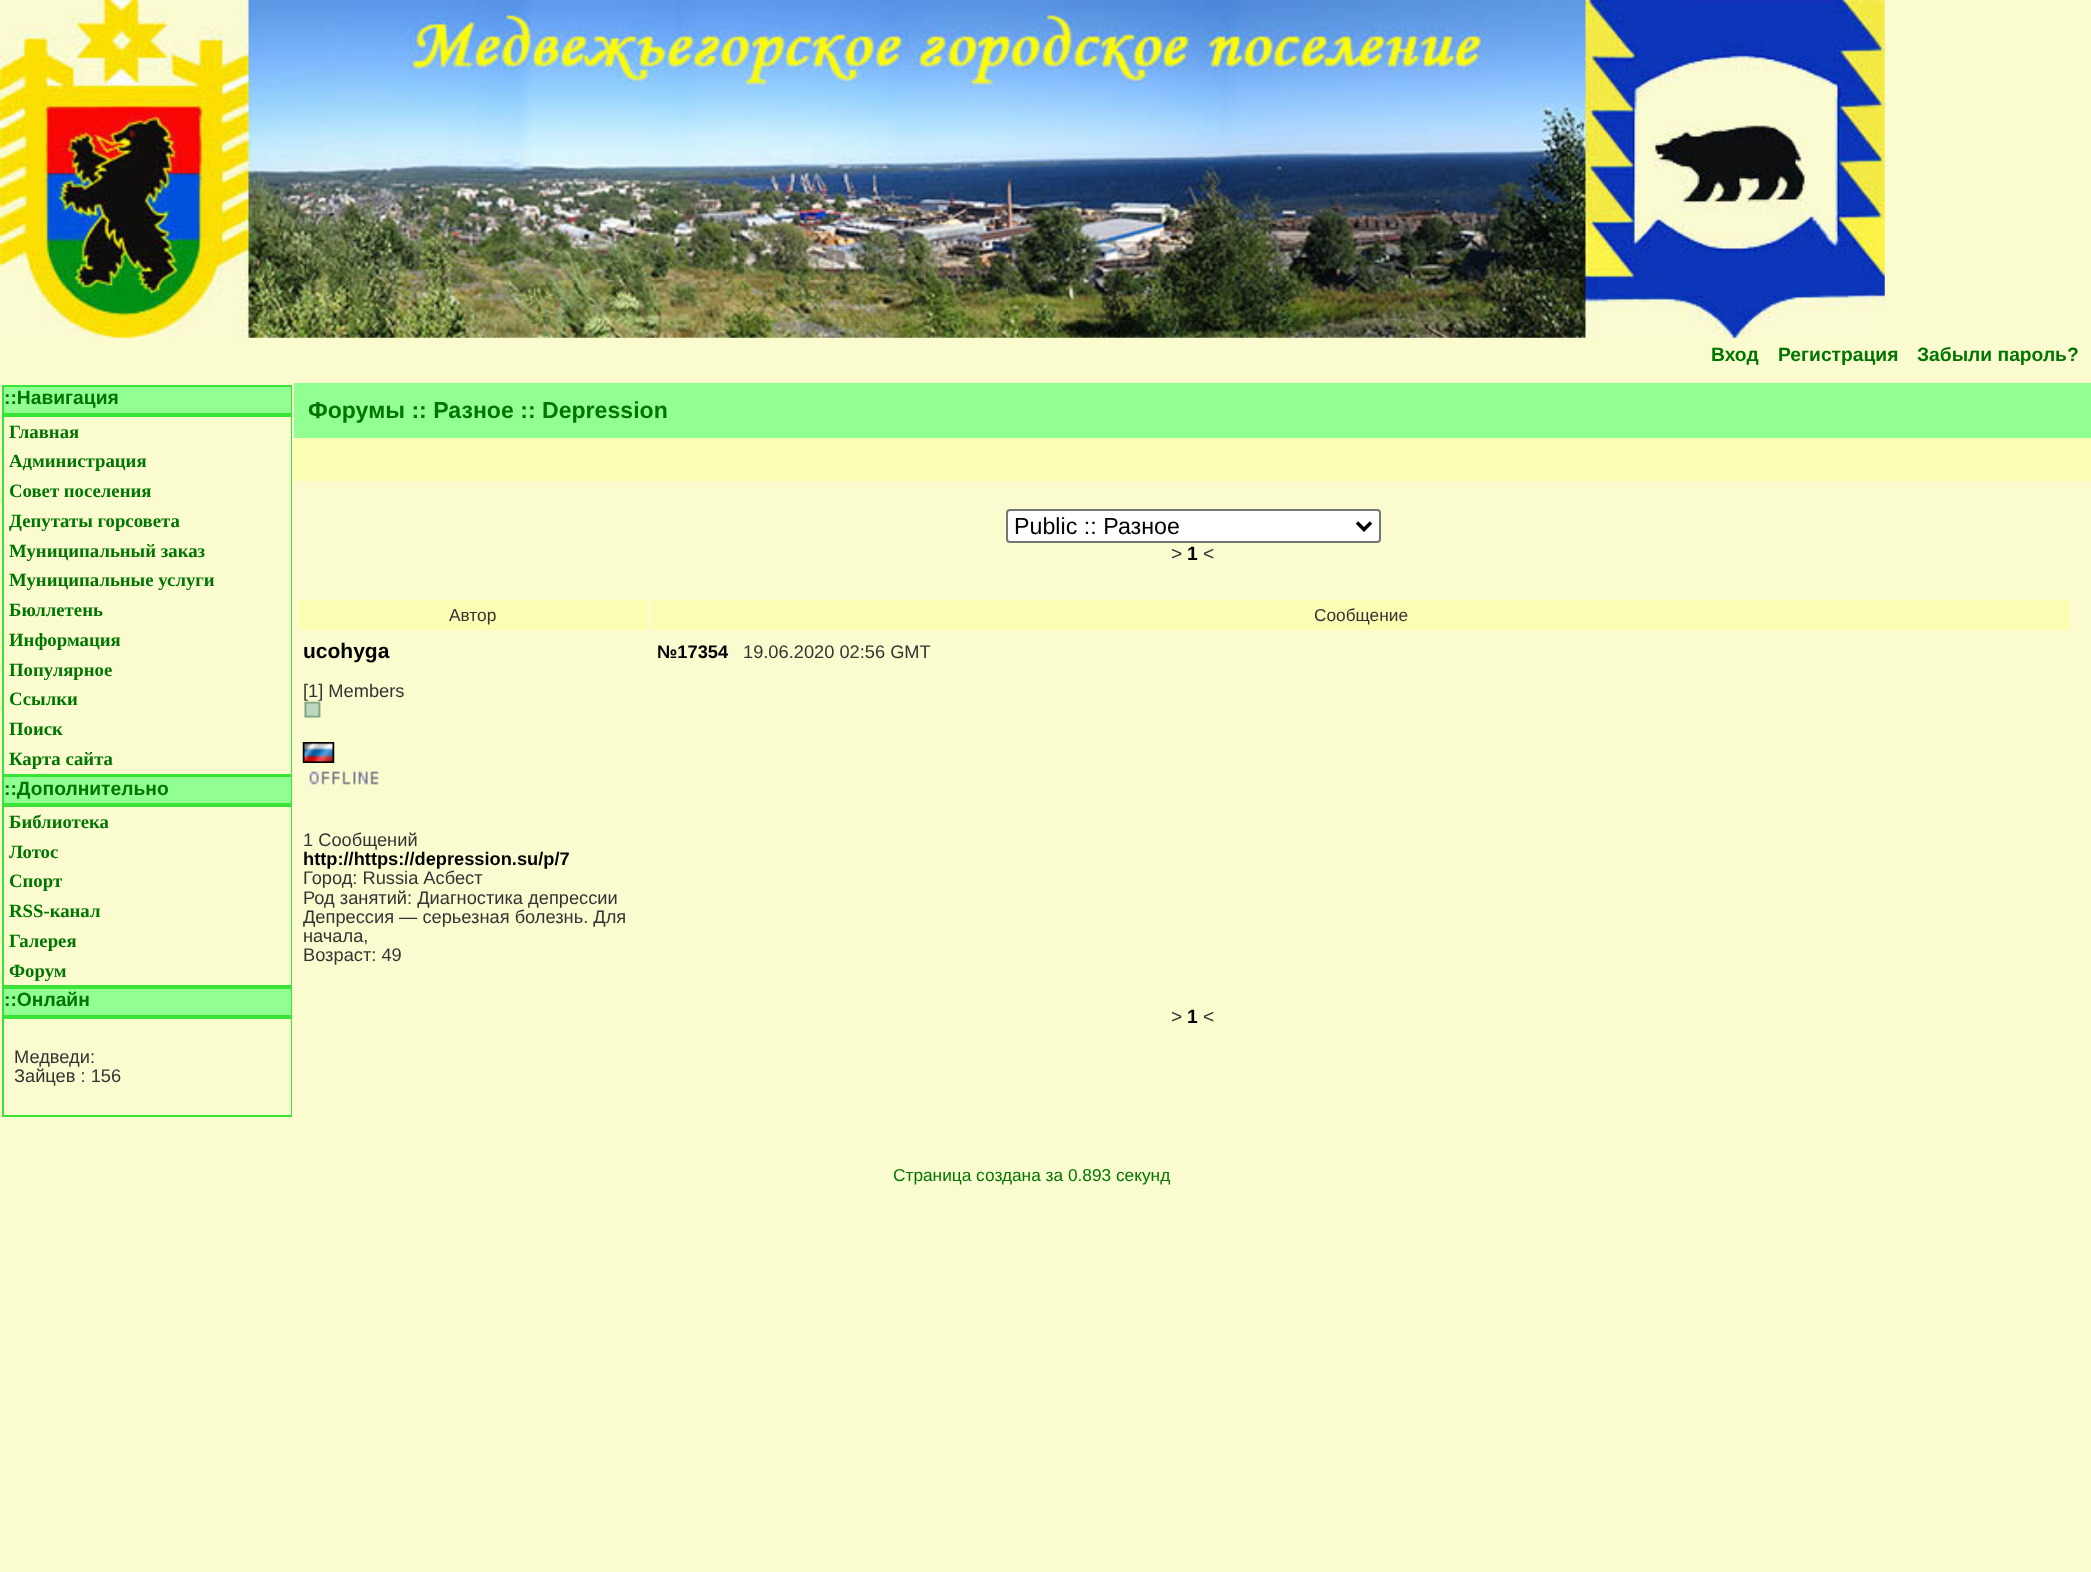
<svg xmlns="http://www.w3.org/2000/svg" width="2091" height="1572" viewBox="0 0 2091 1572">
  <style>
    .t1 { font: bold 19.25px Liberation Sans; fill: #007500; }
    .t2 { font: bold 18.75px Liberation Serif; fill: #007500; }
    .t3 { font: 18.25px Liberation Sans; fill: #333; }
    .t4 { font: bold 23.1px Liberation Sans; fill: #007500; }
    .t5 { font: 23.25px Liberation Sans; fill: #000; }
    .t6 { font: 19.25px Liberation Sans; fill: #333; }
    .t7 { font: bold 19.25px Liberation Sans; fill: #000; }
    .t8 { font: 17.3px Liberation Sans; fill: #333; }
    .t9 { font: bold 21px Liberation Sans; fill: #000; }
    .t10 { font: bold 18.25px Liberation Sans; fill: #000; }
    .t11 { font: 17.3px Liberation Sans; fill: #007500; }
  </style>
  <rect width="100%" height="100%" fill="#fafbcf"/>
  <image x="0" y="0" width="1885" height="338" href="images/1.png"/>
  <text x="1711" y="361" class="t1">Вход</text>
  <text x="1778" y="361" class="t1">Регистрация</text>
  <text x="1917" y="361" class="t1">Забыли пароль?</text>
  <rect x="2" y="385" width="290" height="732" fill="#38e438"/>
  <rect x="4" y="387" width="287" height="26" fill="#91ff91"/>
  <text x="4" y="404" class="t1">::Навигация</text>
  <rect x="4" y="417" width="287" height="357" fill="#fafbcf"/>
  <text x="9" y="438" class="t2">Главная</text>
  <text x="9" y="467" class="t2">Администрация</text>
  <text x="9" y="497" class="t2">Совет поселения</text>
  <text x="9" y="527" class="t2">Депутаты горсовета</text>
  <text x="9" y="557" class="t2">Муниципальный заказ</text>
  <text x="9" y="586" class="t2">Муниципальные услуги</text>
  <text x="9" y="616" class="t2">Бюллетень</text>
  <text x="9" y="646" class="t2">Информация</text>
  <text x="9" y="676" class="t2">Популярное</text>
  <text x="9" y="705" class="t2">Ссылки</text>
  <text x="9" y="735" class="t2">Поиск</text>
  <text x="9" y="765" class="t2">Карта сайта</text>
  <rect x="4" y="777" width="287" height="26" fill="#91ff91"/>
  <text x="4" y="795" class="t1">::Дополнительно</text>
  <rect x="4" y="807" width="287" height="178" fill="#fafbcf"/>
  <text x="9" y="828" class="t2">Библиотека</text>
  <text x="9" y="858" class="t2">Лотос</text>
  <text x="9" y="887" class="t2">Спорт</text>
  <text x="9" y="917" class="t2">RSS-канал</text>
  <text x="9" y="947" class="t2">Галерея</text>
  <text x="9" y="977" class="t2">Форум</text>
  <rect x="4" y="989" width="287" height="26" fill="#91ff91"/>
  <text x="4" y="1006" class="t1">::Онлайн</text>
  <rect x="4" y="1019" width="287" height="96" fill="#fafbcf"/>
  <text x="14" y="1063" class="t3">Медведи:</text>
  <text x="14" y="1082" class="t3">Зайцев : 156</text>
  <rect x="294" y="383" width="1797" height="55" fill="#91ff91"/>
  <text x="308" y="418" class="t4">Форумы :: Разное :: Depression</text>
  <rect x="294" y="438" width="1797" height="43" fill="#fbfdb3"/>
  <rect x="1007" y="510" width="373" height="32" rx="3" fill="#fff" stroke="#767676" stroke-width="2"/>
  <path d="M1357 522.5L1364 529.5L1371 522.5" fill="none" stroke="#000" stroke-width="3.5"/>
  <text x="1014" y="534" class="t5">Public :: Разное</text>
  <text x="1171" y="560" class="t6">&gt;</text>
  <text x="1187" y="560" class="t7">1</text>
  <text x="1203" y="560" class="t6">&lt;</text>
  <rect x="298" y="600" width="350" height="30" fill="#fbfdb3"/>
  <text x="449" y="621" class="t8">Автор</text>
  <rect x="651" y="600" width="1419" height="30" fill="#fbfdb3"/>
  <text x="1314" y="621" class="t8">Сообщение</text>
  <text x="303" y="658" class="t9">ucohyga</text>
  <text x="303" y="697" class="t3">[1] Members</text>
  <image x="304" y="701" width="17" height="17" href="images/2.png"/>
  <image x="302" y="742" width="33" height="21" href="images/3.png"/>
  <image x="309" y="771" width="70" height="14" href="images/4.png"/>
  <text x="303" y="846" class="t3">1 Сообщений</text>
  <text x="303" y="865" class="t10">http://https://depression.su/p/7</text>
  <text x="303" y="884" class="t3">Город: Russia Асбест</text>
  <text x="303" y="904" class="t3">Род занятий: Диагностика депрессии</text>
  <text x="303" y="923" class="t3">Депрессия — серьезная болезнь. Для</text>
  <text x="303" y="942" class="t3">начала,</text>
  <text x="303" y="961" class="t3">Возраст: 49</text>
  <text x="657" y="658" class="t10">№17354</text>
  <text x="743" y="658" class="t3">19.06.2020 02:56 GMT</text>
  <text x="1171" y="1023" class="t6">&gt;</text>
  <text x="1187" y="1023" class="t7">1</text>
  <text x="1203" y="1023" class="t6">&lt;</text>
  <text x="893" y="1181" class="t11">Страница создана за 0.893 секунд</text>
</svg>
